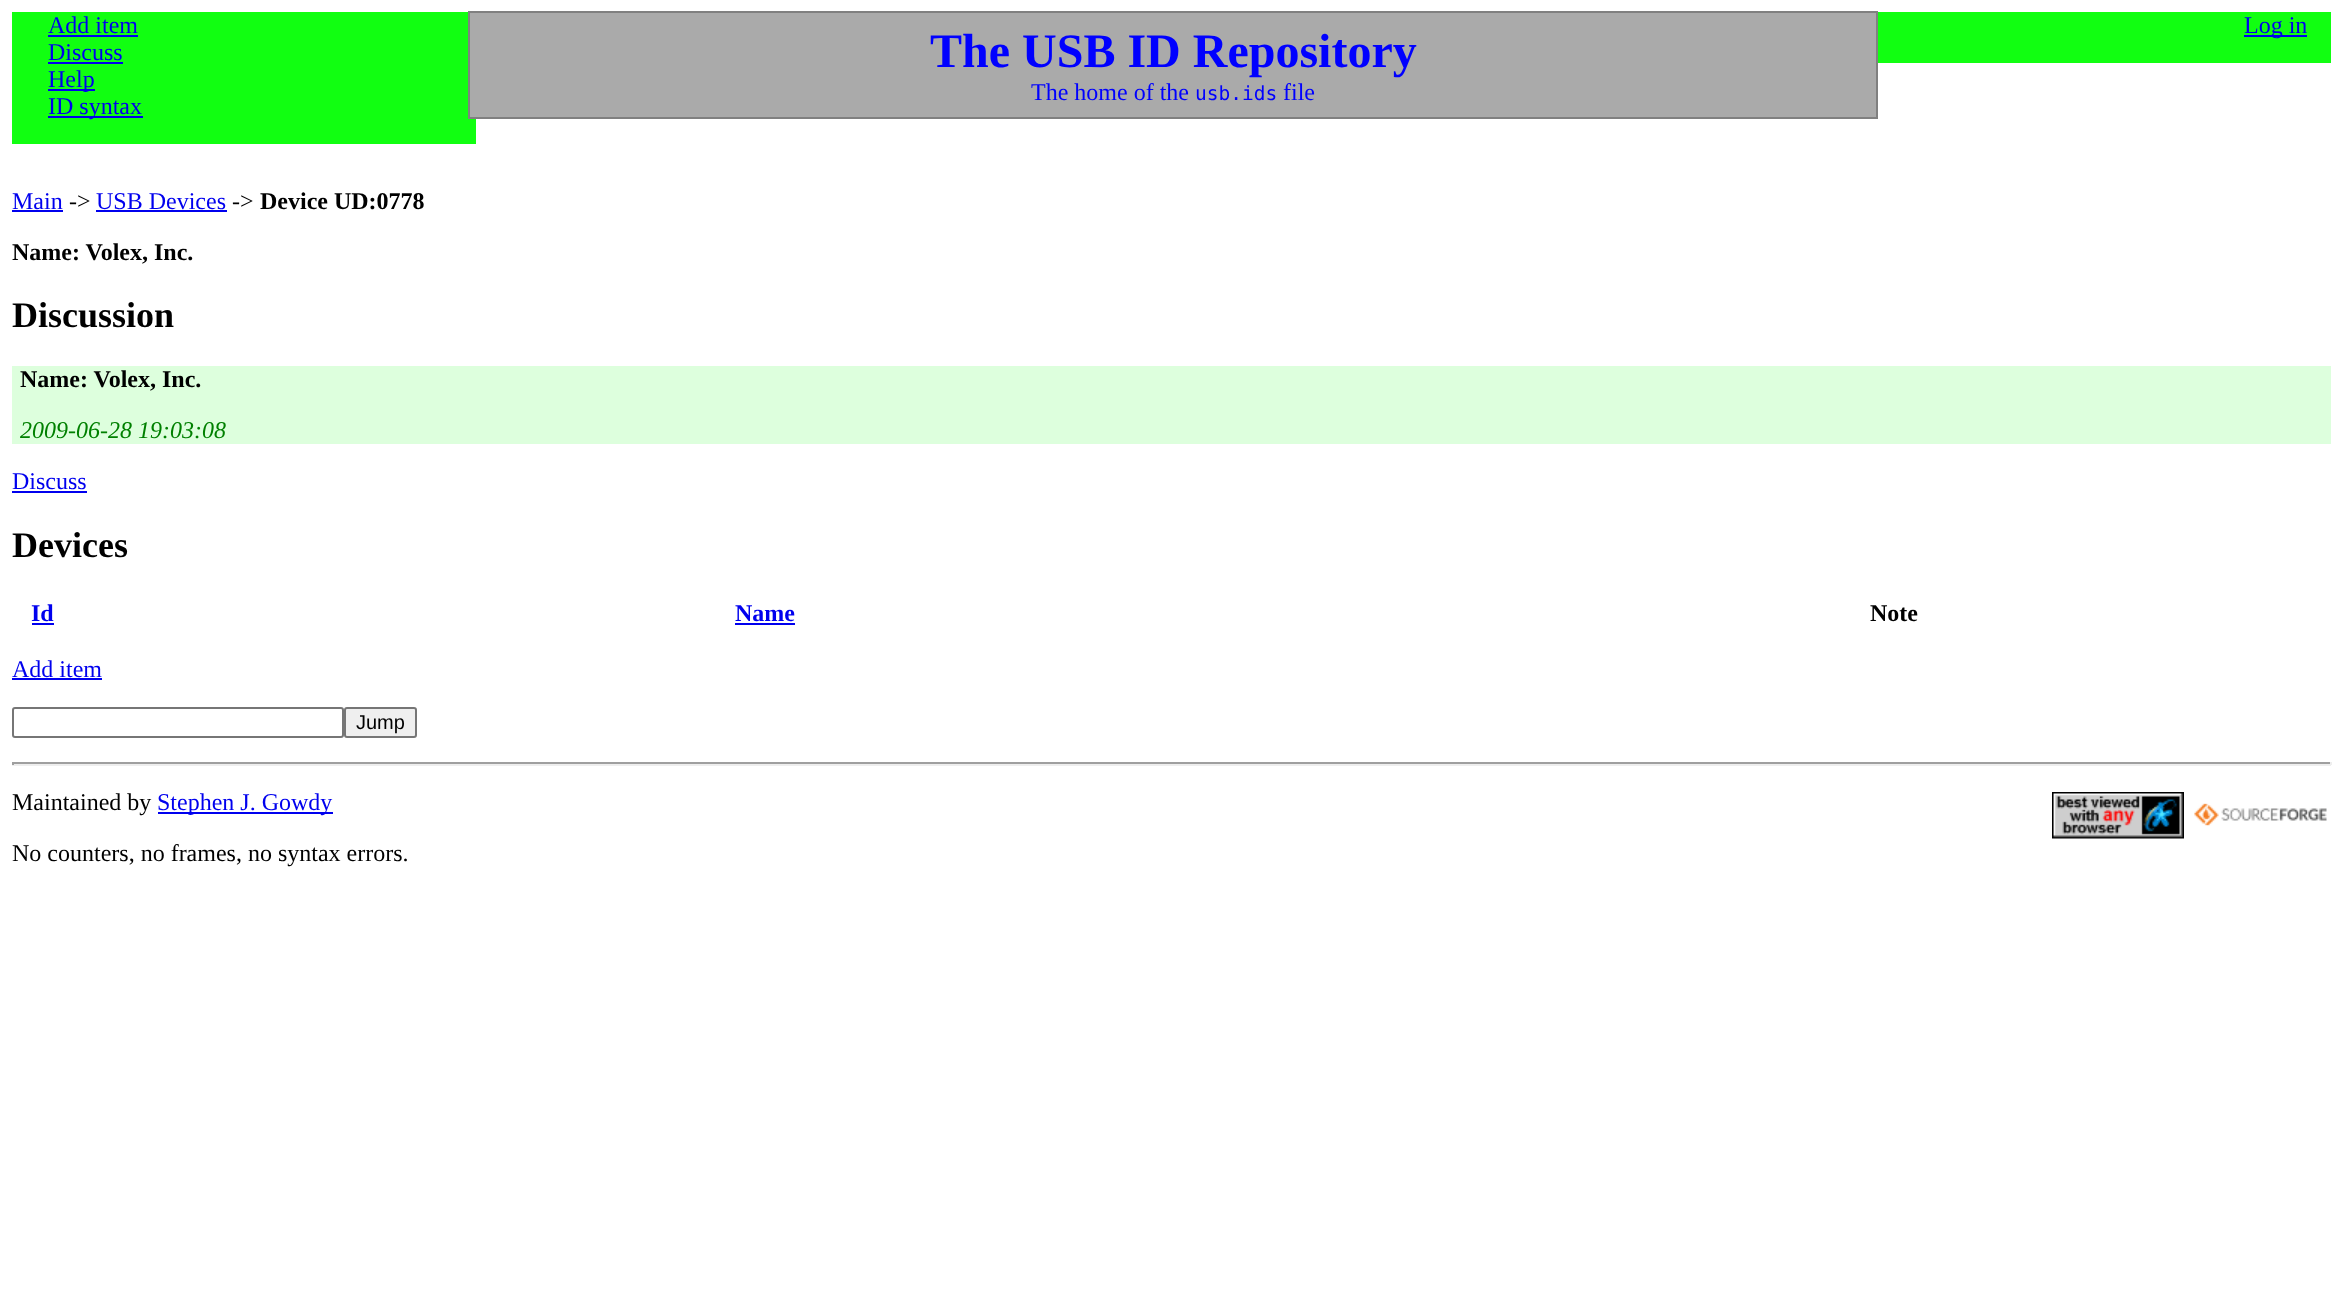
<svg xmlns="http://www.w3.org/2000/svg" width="2343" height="1309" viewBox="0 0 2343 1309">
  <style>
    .t1 { font: 24px Liberation Serif; fill: #00e; }
    .t2 { font: bold 48px Liberation Serif; fill: #00f; }
    .t3 { font: 24px Liberation Serif; fill: #00f; }
    .t4 { font: 19.5px DejaVu Sans Mono; fill: #00f; }
    .t5 { font: 24px Liberation Serif; fill: #000; }
    .t6 { font: bold 24px Liberation Serif; fill: #000; }
    .t7 { font: bold 36px Liberation Serif; fill: #000; }
    .t8 { font: italic 24px Liberation Serif; fill: #008000; }
    .t9 { font: bold 24px Liberation Serif; fill: #00e; }
    .t10 { font: 20px Liberation Sans; fill: #000; }
  </style>
  <rect width="100%" height="100%" fill="#fff"/>
  <rect x="12" y="12" width="464" height="132" fill="#1f1"/>
  <text x="48" y="33" class="t1">Add item</text>
  <rect x="48" y="35" width="90" height="2" fill="#00e"/>
  <text x="48" y="60" class="t1">Discuss</text>
  <rect x="48" y="62" width="75" height="2" fill="#00e"/>
  <rect x="48" y="89" width="47" height="2" fill="#00e"/>
  <text x="48" y="87" class="t1">Help</text>
  <rect x="48" y="116" width="95" height="2" fill="#00e"/>
  <text x="48" y="114" class="t1">ID syntax</text>
  <rect x="1878" y="12" width="453" height="51" fill="#1f1"/>
  <rect x="2244" y="35" width="63" height="2" fill="#00e"/>
  <text x="2244" y="33" class="t1">Log in</text>
  <rect x="469" y="12" width="1408" height="106" fill="#aaa" stroke="#808080" stroke-width="2"/>
  <text x="930" y="67" class="t2">The USB ID Repository</text>
  <text x="1031" y="100" class="t3">The home of the</text>
  <text x="1195" y="100" class="t4">usb.ids</text>
  <text x="1283" y="100" class="t3">file</text>
  <text x="12" y="209" class="t1">Main</text>
  <rect x="12" y="210" width="51" height="2" fill="#00e"/>
  <text x="69" y="209" class="t5">-&gt;</text>
  <text x="96" y="209" class="t1">USB Devices</text>
  <rect x="96" y="210" width="131" height="2" fill="#00e"/>
  <text x="232" y="209" class="t5">-&gt;</text>
  <text x="260" y="209" class="t6">Device UD:0778</text>
  <text x="12" y="260" class="t6">Name: Volex, Inc.</text>
  <text x="12" y="327" class="t7">Discussion</text>
  <rect x="12" y="366" width="2319" height="78" fill="#dfd"/>
  <text x="20" y="387" class="t6">Name: Volex, Inc.</text>
  <text x="20" y="438" class="t8">2009-06-28 19:03:08</text>
  <text x="12" y="489" class="t1">Discuss</text>
  <rect x="12" y="491" width="75" height="2" fill="#00e"/>
  <text x="12" y="557" class="t7">Devices</text>
  <text x="31" y="621" class="t9">Id</text>
  <rect x="32" y="623" width="22" height="2" fill="#00e"/>
  <text x="735" y="621" class="t9">Name</text>
  <rect x="735" y="623" width="60" height="2" fill="#00e"/>
  <text x="1870" y="621" class="t6">Note</text>
  <text x="12" y="677" class="t1">Add item</text>
  <rect x="12" y="678" width="90" height="2" fill="#00e"/>
  <rect x="13" y="708" width="330" height="29" rx="2" fill="none" stroke="#767676" stroke-width="2"/>
  <rect x="345" y="708" width="71" height="29" rx="2" fill="#efefef" stroke="#767676" stroke-width="2"/>
  <text x="356" y="729" class="t10">Jump</text>
  <rect x="12" y="762" width="2319" height="2" fill="#9f9f9f"/>
  <rect x="2330" y="762" width="2" height="3" fill="#eee"/>
  <rect x="12" y="764" width="2319" height="2" fill="#eee"/>
  <rect x="12" y="762" width="2" height="3" fill="#9f9f9f"/>
  <text x="12" y="810" class="t5">Maintained by</text>
  <rect x="158" y="812" width="175" height="2" fill="#00e"/>
  <text x="157" y="810" class="t1">Stephen J. Gowdy</text>
  <image x="2052" y="792" width="132" height="47" href="images/1.png"/>
  <image x="2194" y="803" width="133" height="23" href="images/2.png"/>
  <text x="12" y="861" class="t5">No counters, no frames, no syntax errors.</text>
</svg>
